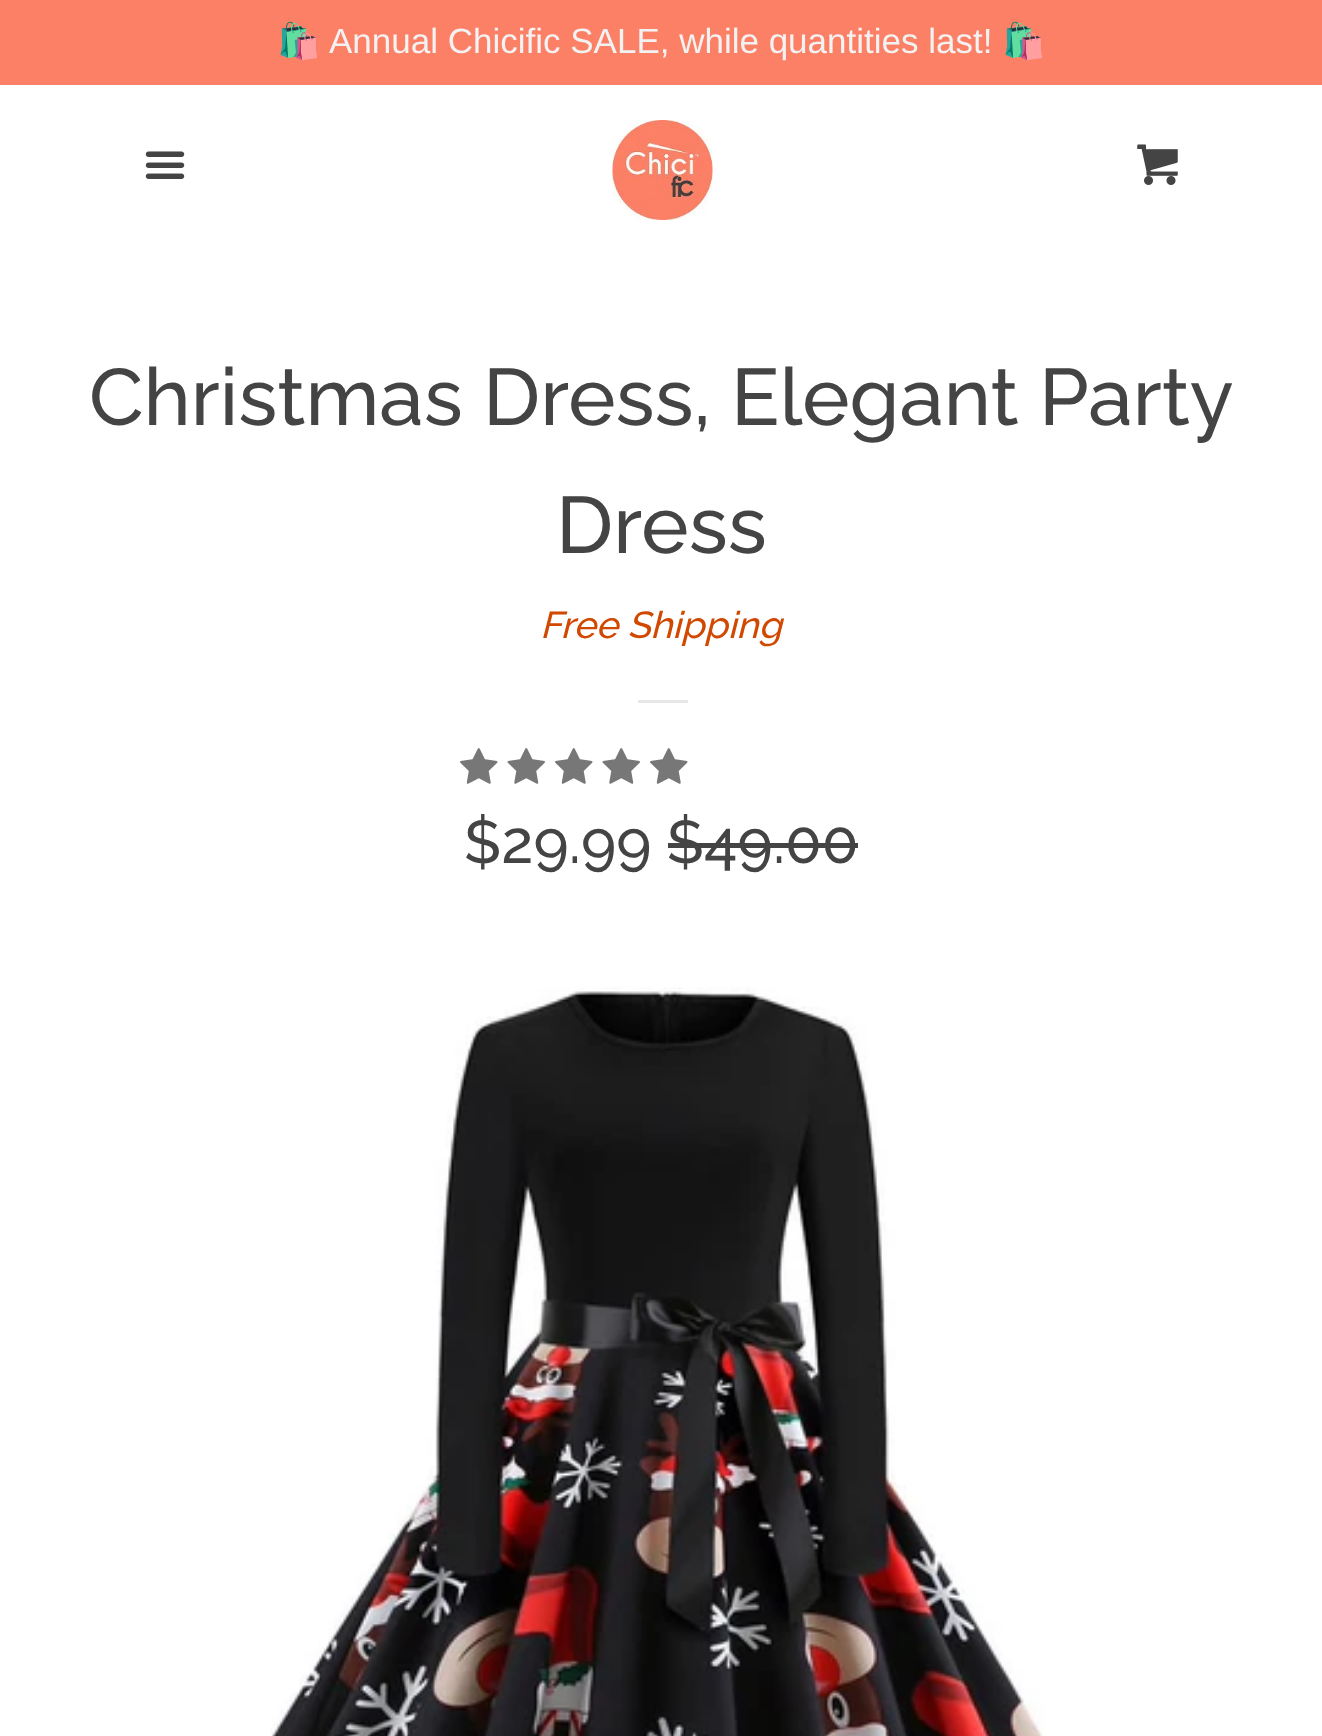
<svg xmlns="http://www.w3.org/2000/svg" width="1322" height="1736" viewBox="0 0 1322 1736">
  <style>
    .t1 { font: 35px Noto Color Emoji; fill: #f2f2f2; }
    .t2 { font: 35px Liberation Sans; fill: #f2f2f2; }
    .t3 { font: 500 80px Raleway; fill: #444; }
    .t4 { font: italic 500 37.5px Raleway; fill: #d14800; }
    .t5 { font: 500 60px Raleway; fill: #444; }
  </style>
  <rect width="100%" height="100%" fill="#fff"/>
  <rect x="0" y="0" width="1322" height="85" fill="#fb8065"/>
  <text x="277" y="53" class="t1">🛍️</text>
  <text x="329" y="53" class="t2">Annual Chicific SALE, while quantities last!</text>
  <text x="1002" y="53" class="t1">🛍️</text>
  <image x="145" y="151" width="40" height="28" href="images/1.png"/>
  <image x="612" y="120" width="101" height="100" href="images/2.png"/>
  <image x="1137" y="144" width="41" height="41" href="images/3.png"/>
  <text x="89" y="425" class="t3">Christmas Dress,</text>
  <text x="731" y="425" class="t3">Elegant Party</text>
  <text x="556" y="553" class="t3">Dress</text>
  <text x="540" y="638" class="t4">Free Shipping</text>
  <rect x="638" y="700" width="50" height="3" fill="#e7e7e7"/>
  <image x="460" y="748" width="38" height="36" href="images/4.png"/>
  <image x="507" y="748" width="38" height="36" href="images/5.png"/>
  <image x="555" y="748" width="38" height="36" href="images/4.png"/>
  <image x="602" y="748" width="38" height="36" href="images/5.png"/>
  <image x="650" y="748" width="38" height="36" href="images/4.png"/>
  <text x="464" y="863" class="t5">$29.99 $49.00</text>
  <rect x="668" y="843" width="190" height="5" fill="#444"/>
  <image x="270" y="987" width="776" height="749" href="images/6.png"/>
</svg>
